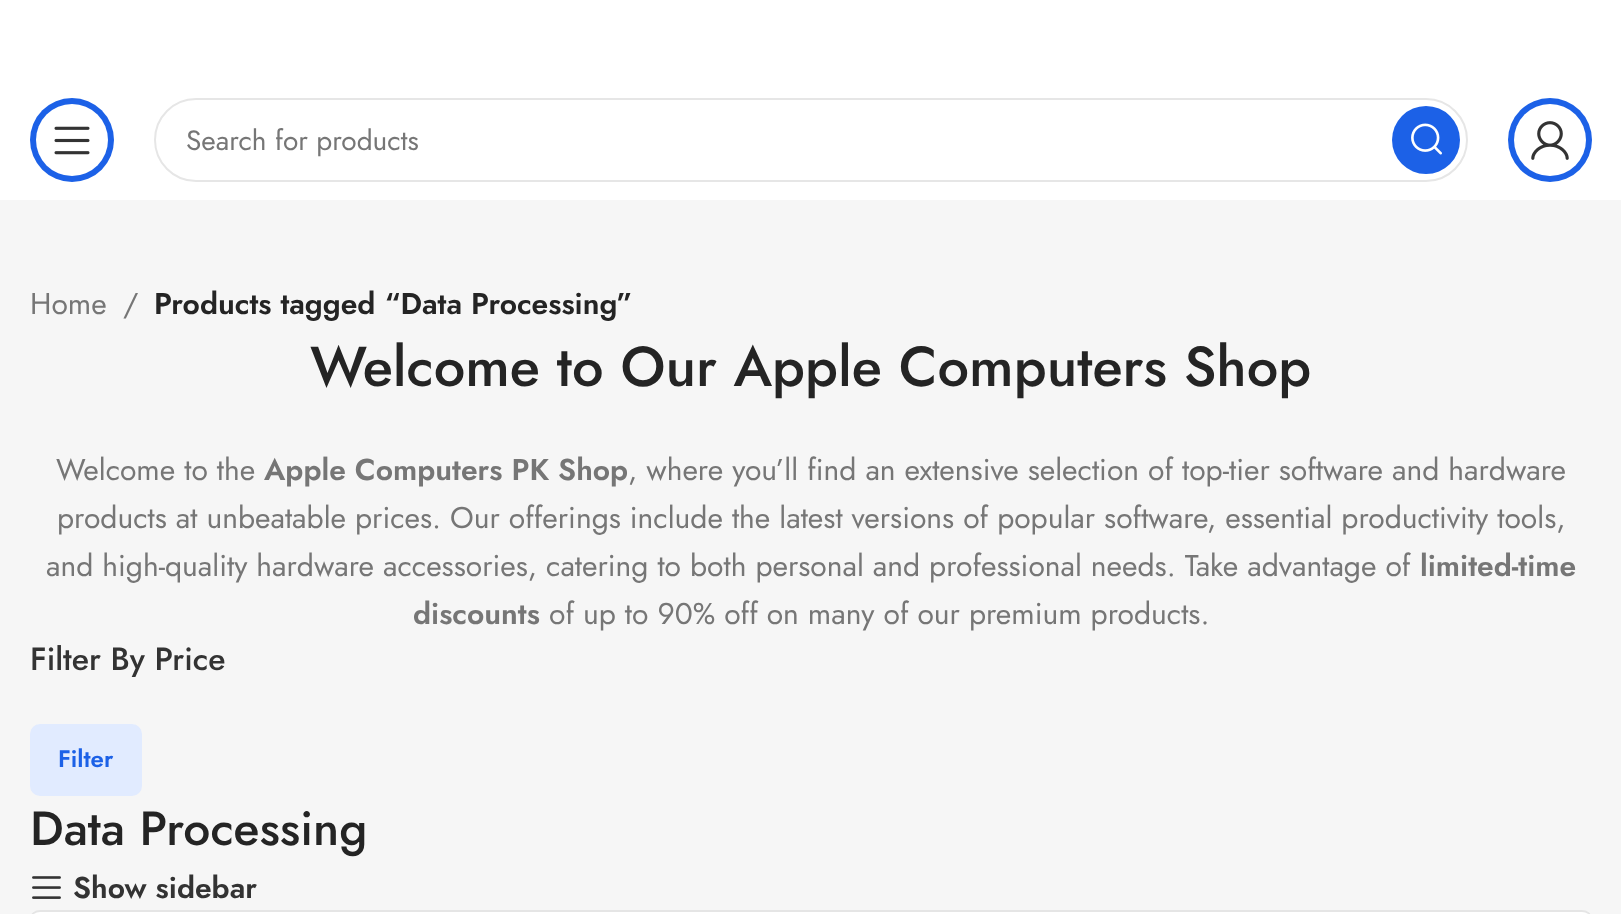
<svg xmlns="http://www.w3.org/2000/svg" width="1621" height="914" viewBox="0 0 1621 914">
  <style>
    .t1 { font: 28px Jost; fill: #767676; }
    .t2 { font: 30px Jost; fill: #767676; }
    .t3 { font: 600 30px Jost; fill: #242424; }
    .t4 { font: 500 56px Jost; fill: #242424; }
    .t5 { font: 600 30px Jost; fill: #767676; }
    .t6 { font: 500 32px Jost; fill: #333; }
    .t7 { font: 600 24px Jost; fill: #1c61e7; }
    .t8 { font: 500 48px Jost; fill: #242424; }
    .t9 { font: 600 30px Jost; fill: #333; }
  </style>
  <rect width="100%" height="100%" fill="#fff"/>
  <circle cx="72" cy="140" r="42" fill="#1c61e7"/>
  <circle cx="72" cy="140" r="36" fill="#fff"/>
  <image x="54" y="126" width="36" height="29" href="images/1.png"/>
  <rect x="155" y="99" width="1312" height="82" rx="41" fill="none" stroke="#e6e6e6" stroke-width="2"/>
  <text x="186" y="150" class="t1">Search for products</text>
  <circle cx="1426" cy="140" r="34" fill="#1c61e7"/>
  <image x="1411" y="123" width="31" height="32" href="images/2.png"/>
  <circle cx="1550" cy="140" r="42" fill="#1c61e7"/>
  <circle cx="1550" cy="140" r="36" fill="#fff"/>
  <image x="1531" y="121" width="38" height="39" href="images/3.png"/>
  <rect x="0" y="200" width="1621" height="714" fill="#f6f6f6"/>
  <text x="30" y="314" class="t2">Home</text>
  <text x="123" y="314" class="t2">/</text>
  <text x="154" y="314" class="t3">Products tagged “Data Processing”</text>
  <text x="310" y="386" class="t4">Welcome to Our Apple Computers Shop</text>
  <text x="56" y="480" class="t2">Welcome to the</text>
  <text x="264" y="480" class="t5">Apple Computers PK Shop</text>
  <text x="628" y="480" class="t2">, where you’ll find an extensive selection of top-tier software and hardware</text>
  <text x="57" y="528" class="t2">products at unbeatable prices. Our offerings include the latest versions of popular software, essential productivity tools,</text>
  <text x="46" y="576" class="t2">and high-quality hardware accessories, catering to both personal and professional needs. Take advantage of</text>
  <text x="1420" y="576" class="t5">limited-time</text>
  <text x="413" y="624" class="t5">discounts</text>
  <text x="549" y="624" class="t2">of up to 90% off on many of our premium products.</text>
  <text x="30" y="670" class="t6">Filter By Price</text>
  <rect x="30" y="724" width="112" height="72" rx="10" fill="#e1ebff"/>
  <text x="58" y="767" class="t7">Filter</text>
  <text x="30" y="845" class="t8">Data Processing</text>
  <image x="32" y="876" width="29" height="23" href="images/4.png"/>
  <text x="73" y="898" class="t9">Show sidebar</text>
  <rect x="30" y="910" width="1562" height="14" rx="10" fill="#fff"/>
  <rect x="31" y="911" width="1560" height="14" rx="9" fill="none" stroke="#0000001a" stroke-width="2"/>
</svg>
